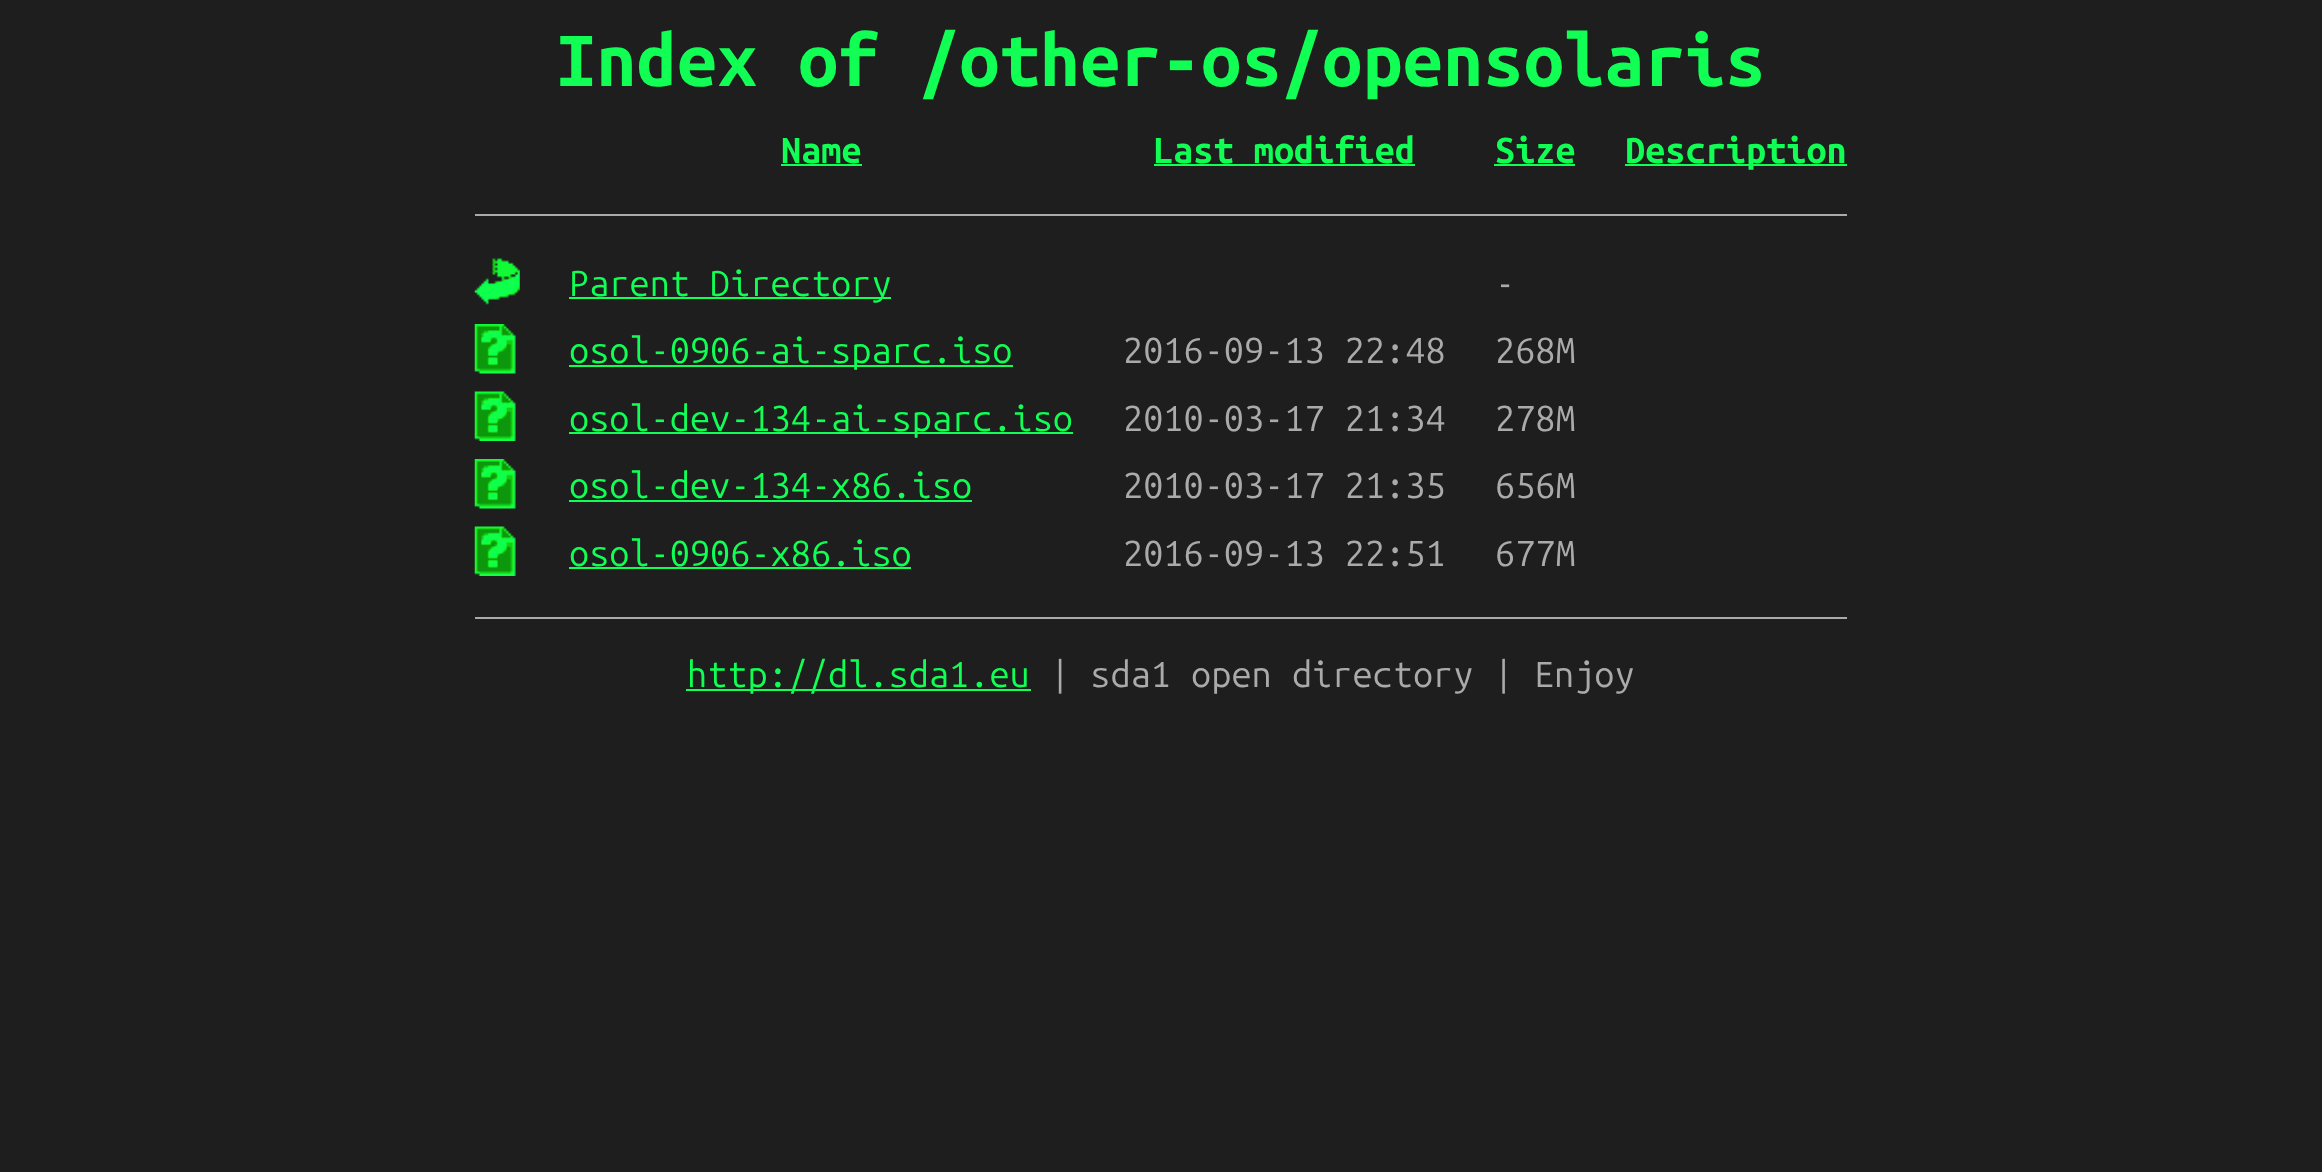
<svg xmlns="http://www.w3.org/2000/svg" width="2322" height="1172" viewBox="0 0 2322 1172">
  <style>
    .t1 { font: bold 72px Ubuntu Mono; fill: #1f5; }
    .t2 { font: bold 36px Ubuntu Mono; fill: #1f5; }
    .t3 { font: 36px Ubuntu Mono; fill: #1f5; }
    .t4 { font: 36px Ubuntu Mono; fill: #aaa; }
  </style>
  <rect width="100%" height="100%" fill="#1e1e1e"/>
  <text x="556" y="86" class="t1">Index of /other-os/opensolaris</text>
  <text x="781" y="163" class="t2">Name</text>
  <rect x="781" y="164" width="81" height="2" fill="#1f5"/>
  <text x="1153" y="163" class="t2">Last modified</text>
  <rect x="1154" y="164" width="261" height="2" fill="#1f5"/>
  <text x="1495" y="163" class="t2">Size</text>
  <rect x="1494" y="164" width="81" height="2" fill="#1f5"/>
  <rect x="1625" y="164" width="222" height="2" fill="#1f5"/>
  <text x="1625" y="163" class="t2">Description</text>
  <rect x="475" y="214" width="1372" height="2" fill="#aaa"/>
  <image x="474" y="258" width="46" height="47" href="images/1.png"/>
  <rect x="569" y="297" width="322" height="2" fill="#1f5"/>
  <text x="569" y="296" class="t3">Parent Directory</text>
  <text x="1495" y="296" class="t4">-</text>
  <image x="474" y="324" width="42" height="50" href="images/2.png"/>
  <rect x="569" y="365" width="444" height="2" fill="#1f5"/>
  <text x="569" y="363" class="t3">osol-0906-ai-sparc.iso</text>
  <text x="1123" y="363" class="t4">2016-09-13 22:48</text>
  <text x="1495" y="363" class="t4">268M</text>
  <image x="474" y="391" width="42" height="50" href="images/3.png"/>
  <rect x="569" y="432" width="504" height="2" fill="#1f5"/>
  <text x="569" y="431" class="t3">osol-dev-134-ai-sparc.iso</text>
  <text x="1123" y="431" class="t4">2010-03-17 21:34</text>
  <text x="1495" y="431" class="t4">278M</text>
  <image x="474" y="459" width="42" height="50" href="images/2.png"/>
  <text x="569" y="498" class="t3">osol-dev-134-x86.iso</text>
  <rect x="569" y="500" width="403" height="2" fill="#1f5"/>
  <text x="1123" y="498" class="t4">2010-03-17 21:35</text>
  <text x="1495" y="498" class="t4">656M</text>
  <image x="474" y="526" width="42" height="50" href="images/3.png"/>
  <text x="569" y="566" class="t3">osol-0906-x86.iso</text>
  <rect x="569" y="567" width="342" height="2" fill="#1f5"/>
  <text x="1123" y="566" class="t4">2016-09-13 22:51</text>
  <text x="1495" y="566" class="t4">677M</text>
  <rect x="475" y="617" width="1372" height="2" fill="#aaa"/>
  <rect x="686" y="689" width="345" height="2" fill="#1f5"/>
  <text x="687" y="687" class="t3">http://dl.sda1.eu</text>
  <text x="1050" y="687" class="t4">| sda1 open directory | Enjoy</text>
</svg>
